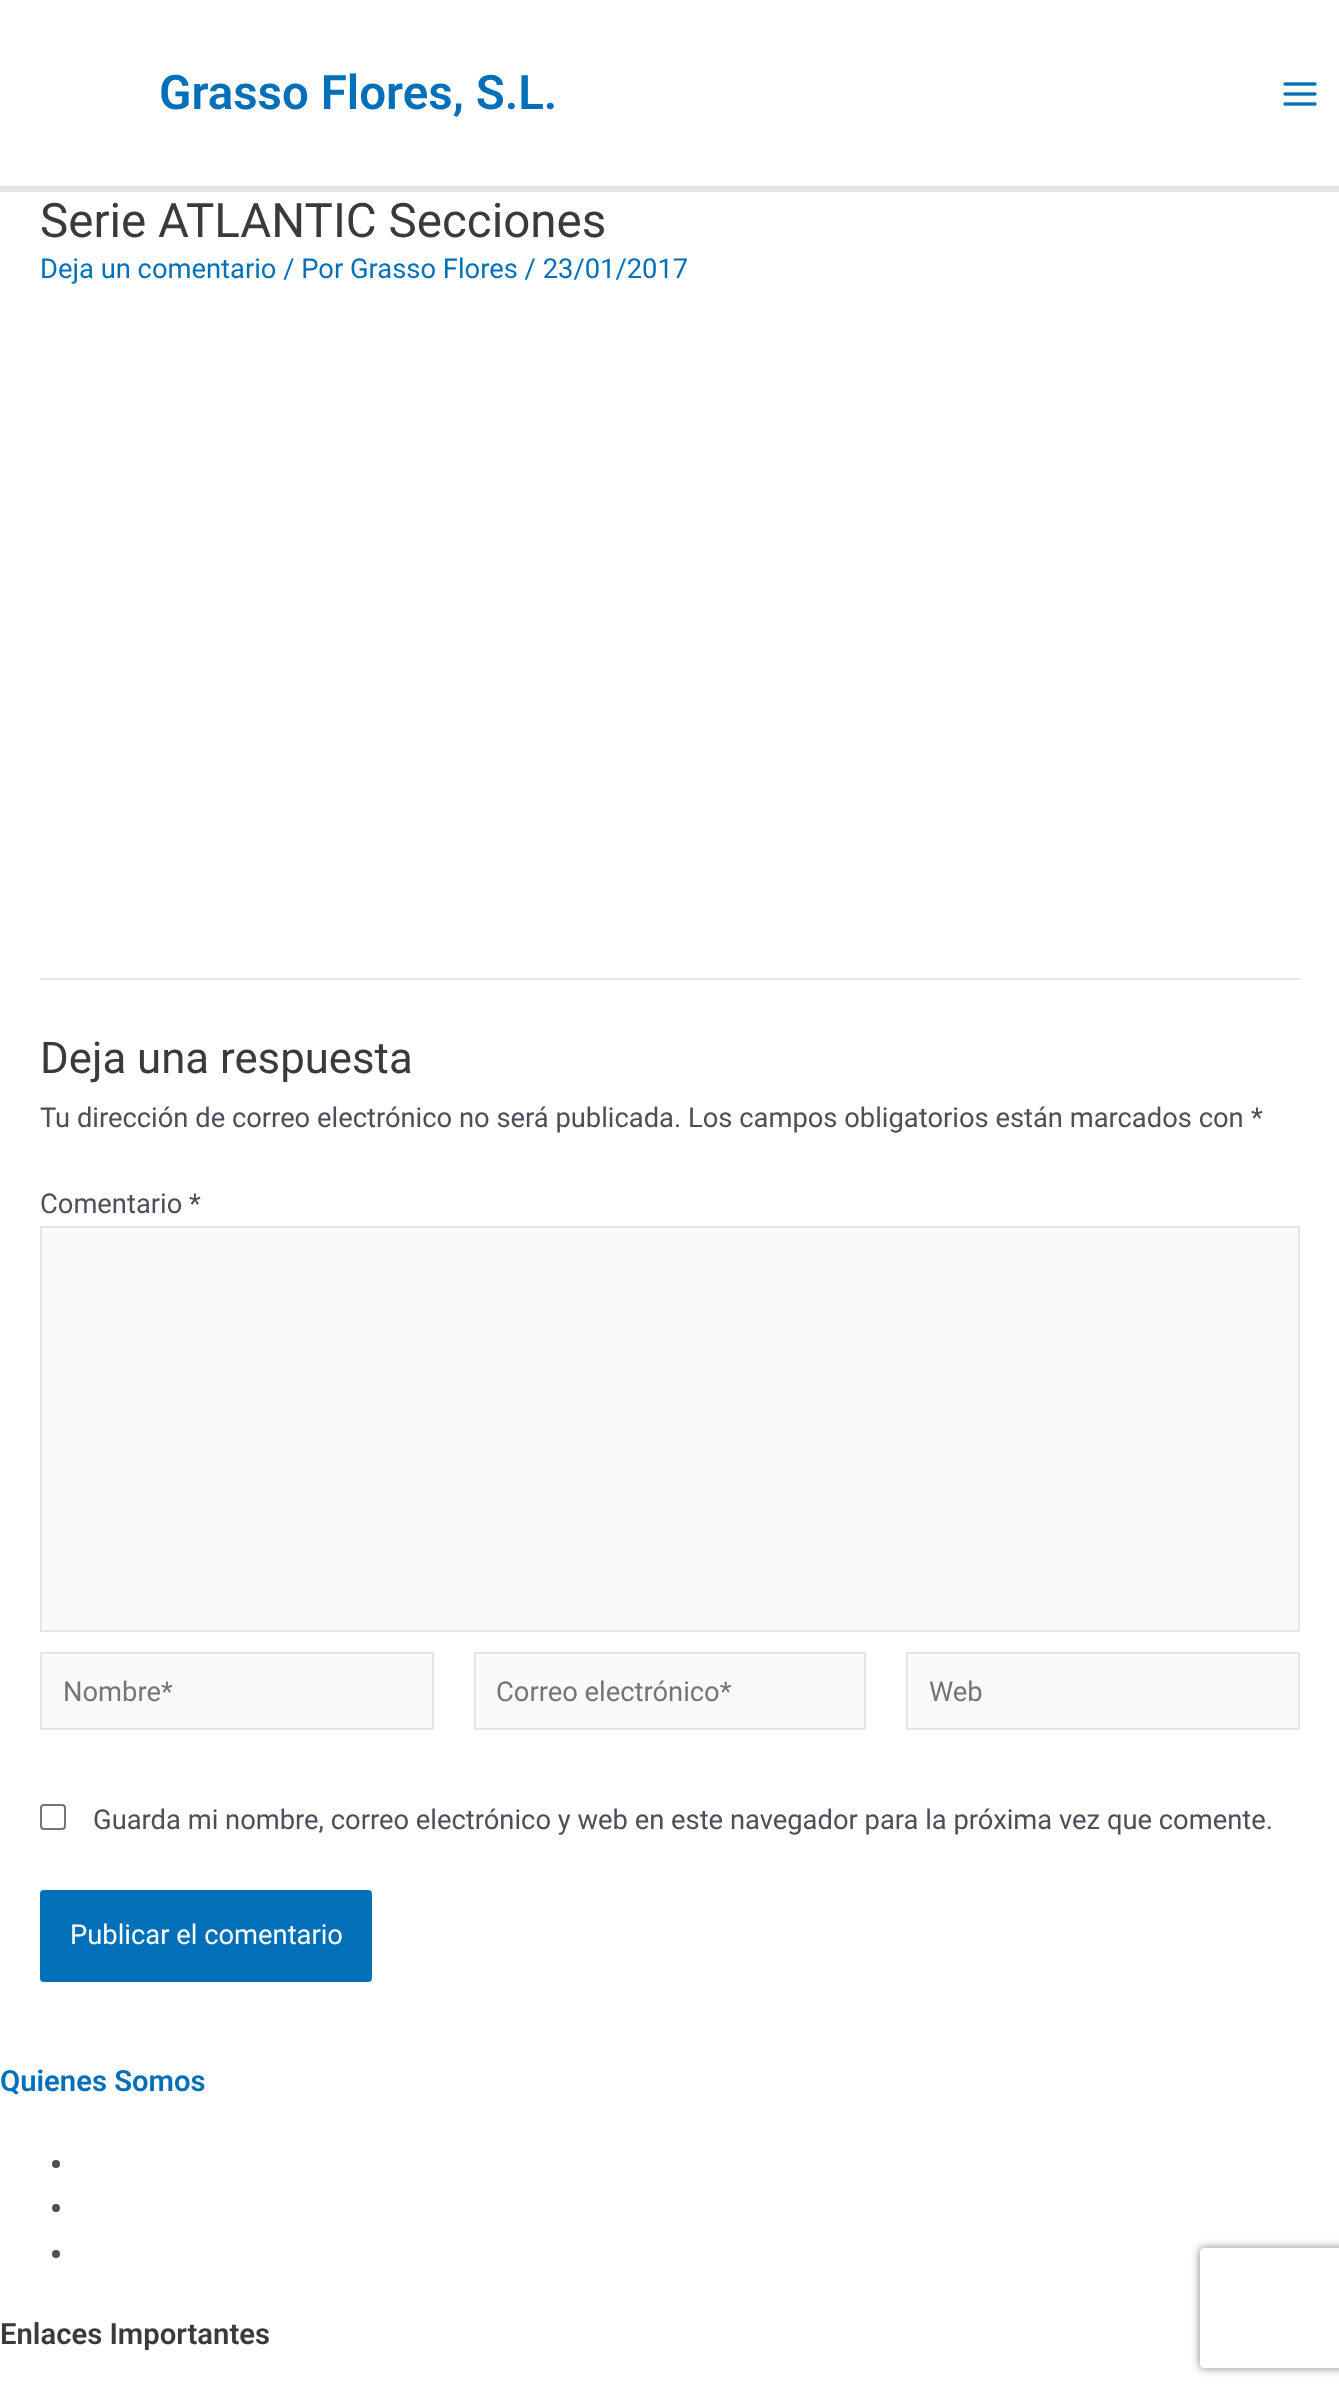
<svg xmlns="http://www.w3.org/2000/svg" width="1339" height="2396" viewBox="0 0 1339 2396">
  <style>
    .t1 { font: 600 47.5px Roboto; fill: #0170b9; }
    .t2 { font: 47.5px Roboto; fill: #3a3a3a; }
    .t3 { font: 27.35px Roboto; fill: #0170b9; }
    .t4 { font: 43.75px Roboto; fill: #3a3a3a; }
    .t5 { font: 27.35px Roboto; fill: #4b4f58; }
    .t6 { font: 27.35px Roboto; fill: #757575; }
    .t7 { font: 27.35px Roboto; fill: #fff; }
    .t8 { font: 600 29.25px Roboto; fill: #0170b9; }
    .t9 { font: 600 29.25px Roboto; fill: #3a3a3a; }
  </style>
  <defs>
    <clipPath id="clip1"><path d="M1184 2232H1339V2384H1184ZM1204 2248H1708C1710 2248 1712 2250 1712 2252V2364C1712 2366 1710 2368 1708 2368H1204C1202 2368 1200 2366 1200 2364V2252C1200 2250 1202 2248 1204 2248Z" clip-rule="evenodd"/></clipPath>
  </defs>
  <rect width="100%" height="100%" fill="#fff"/>
  <rect x="0" y="186" width="1339" height="6" fill="#e5e5e5"/>
  <text x="159" y="109" class="t1">Grasso Flores, S.L.</text>
  <image x="1283" y="82" width="34" height="24" href="images/1.png"/>
  <text x="40" y="237" class="t2">Serie ATLANTIC Secciones</text>
  <text x="40" y="278" class="t3">Deja un comentario / Por Grasso Flores / 23/01/2017</text>
  <rect x="40" y="978" width="1260" height="2" fill="#e5e5e5"/>
  <text x="40" y="1073" class="t4">Deja una respuesta</text>
  <text x="40" y="1127" class="t5">Tu dirección de correo electrónico no será publicada.</text>
  <text x="688" y="1127" class="t5">Los campos obligatorios están marcados con</text>
  <text x="1251" y="1127" class="t5">*</text>
  <text x="40" y="1213" class="t5">Comentario *</text>
  <rect x="41" y="1227" width="1258" height="404" fill="#fafafa" stroke="#e5e5e5" stroke-width="2"/>
  <rect x="41" y="1653" width="392" height="76" fill="#fafafa" stroke="#e5e5e5" stroke-width="2"/>
  <text x="63" y="1701" class="t6">Nombre*</text>
  <rect x="475" y="1653" width="390" height="76" fill="#fafafa" stroke="#e5e5e5" stroke-width="2"/>
  <text x="496" y="1701" class="t6">Correo electrónico*</text>
  <rect x="907" y="1653" width="392" height="76" fill="#fafafa" stroke="#e5e5e5" stroke-width="2"/>
  <text x="929" y="1701" class="t6">Web</text>
  <rect x="41" y="1805" width="24" height="24" rx="3" fill="none" stroke="#767676" stroke-width="2"/>
  <text x="93" y="1829" class="t5">Guarda mi nombre, correo electrónico y web en este navegador para la próxima vez que comente.</text>
  <rect x="40" y="1890" width="332" height="92" rx="4" fill="#0170b9"/>
  <text x="70" y="1944" class="t7">Publicar el comentario</text>
  <text x="0" y="2091" class="t8">Quienes Somos</text>
  <circle cx="56" cy="2164" r="4" fill="#4b4f58"/>
  <circle cx="56" cy="2208" r="4" fill="#4b4f58"/>
  <circle cx="56" cy="2254" r="4" fill="#4b4f58"/>
  <text x="0" y="2344" class="t9">Enlaces Importantes</text>
  <g clip-path="url(#clip1)">
    <rect x="1200" y="2248" width="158" height="120" rx="4" fill="#808080" filter="blur(5px)"/>
  </g>
</svg>
